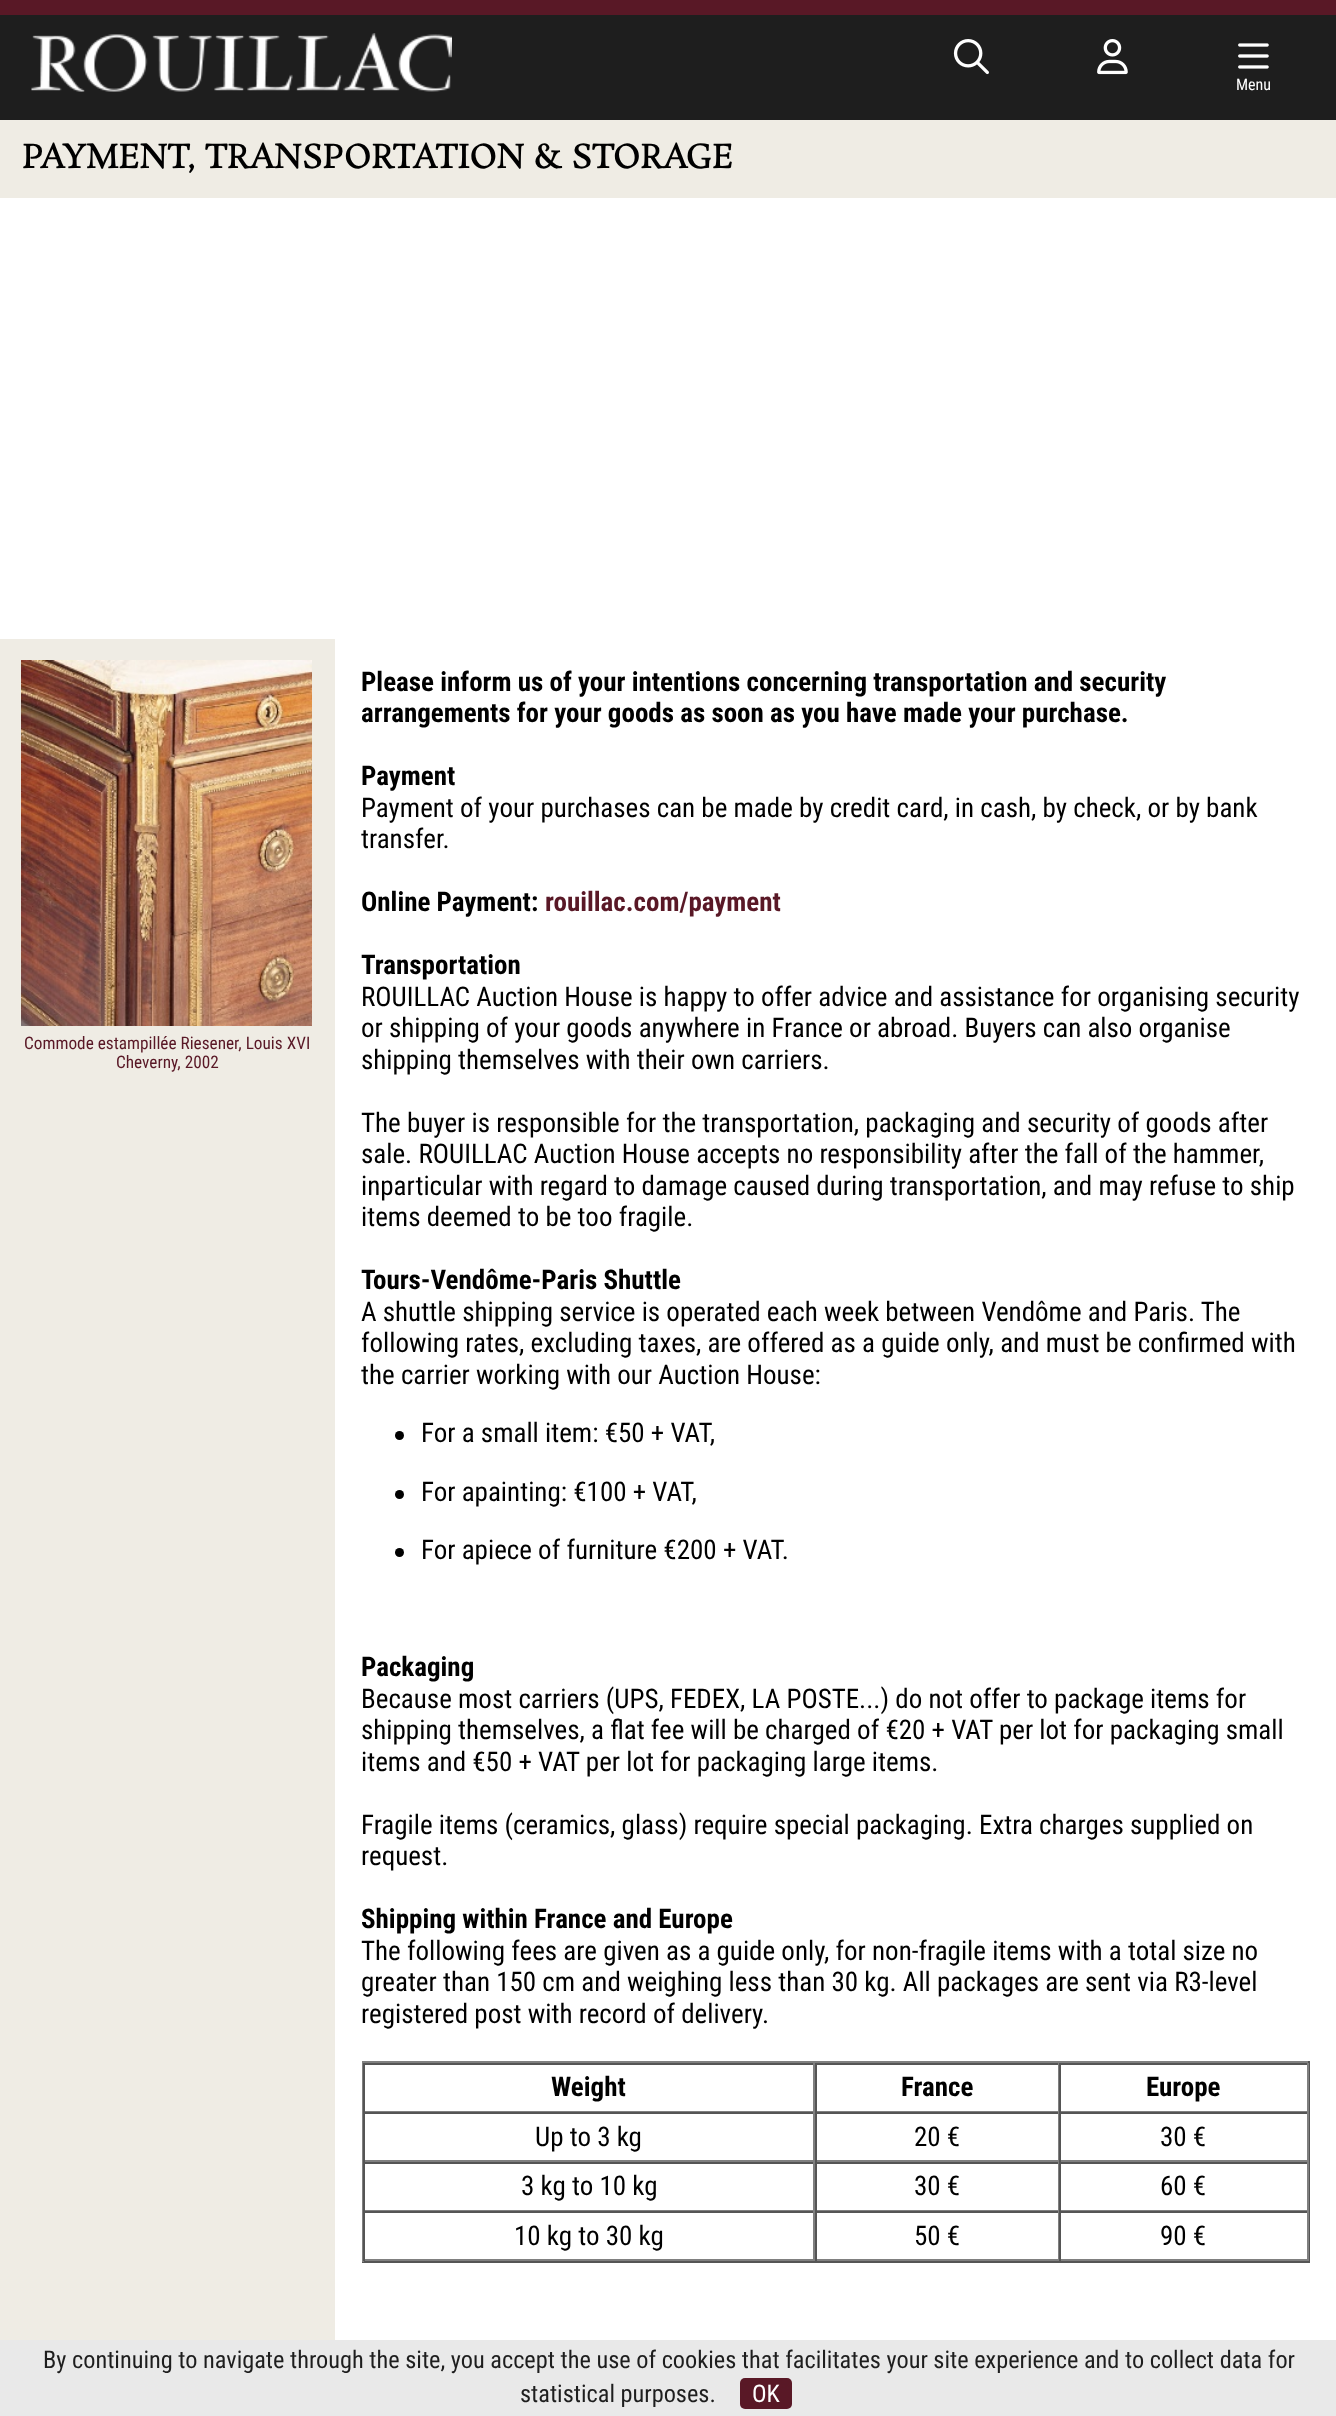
<svg xmlns="http://www.w3.org/2000/svg" width="1336" height="2416" viewBox="0 0 1336 2416">
  <style>
    .t1 { font: 16px Roboto Condensed; fill: #fff; }
    .t2 { font: bold 32.4px Rosarivo; fill: #000; }
    .t3 { font: 17.25px Roboto Condensed; fill: #591826; }
    .t4 { font: bold 27px Roboto Condensed; fill: #000; }
    .t5 { font: 27px Roboto Condensed; fill: #000; }
    .t6 { font: bold 27px Roboto Condensed; fill: #591826; }
    .t7 { font: 24.3px Roboto Condensed; fill: #1e1e1e; }
    .t8 { font: 24.3px Roboto Condensed; fill: #fff; }
  </style>
  <rect width="100%" height="100%" fill="#efece4"/>
  <rect x="0" y="15" width="1336" height="105" fill="#1e1e1e"/>
  <rect x="0" y="0" width="1336" height="15" fill="#591826"/>
  <image x="31" y="33" width="421" height="59" href="images/1.png"/>
  <image x="953" y="39" width="36" height="36" href="images/2.png"/>
  <image x="1097" y="39" width="31" height="36" href="images/3.png"/>
  <image x="1238" y="43" width="31" height="26" href="images/4.png"/>
  <text x="1236" y="90" class="t1">Menu</text>
  <text x="22" y="168" class="t2">PAYMENT, TRANSPORTATION &amp; STORAGE</text>
  <rect x="0" y="198" width="1336" height="441" fill="#fff"/>
  <image x="21" y="660" width="291" height="366" href="images/5.png"/>
  <text x="24" y="1049" class="t3">Commode estampillée Riesener, Louis XVI</text>
  <text x="116" y="1068" class="t3">Cheverny, 2002</text>
  <rect x="335" y="639" width="1001" height="1701" fill="#fff"/>
  <text x="361" y="691" class="t4">Please inform us of your intentions concerning transportation and security</text>
  <text x="361" y="722" class="t4">arrangements for your goods as soon as you have made your purchase.</text>
  <text x="361" y="785" class="t4">Payment</text>
  <text x="361" y="817" class="t5">Payment of your purchases can be made by credit card, in cash, by check, or by bank</text>
  <text x="361" y="848" class="t5">transfer.</text>
  <text x="361" y="911" class="t4">Online Payment:</text>
  <text x="545" y="911" class="t6">rouillac.com/payment</text>
  <text x="361" y="974" class="t4">Transportation</text>
  <text x="361" y="1006" class="t5">ROUILLAC Auction House is happy to offer advice and assistance for organising security</text>
  <text x="361" y="1037" class="t5">or shipping of your goods anywhere in France or abroad. Buyers can also organise</text>
  <text x="361" y="1069" class="t5">shipping themselves with their own carriers.</text>
  <text x="361" y="1132" class="t5">The buyer is responsible for the transportation, packaging and security of goods after</text>
  <text x="361" y="1163" class="t5">sale. ROUILLAC Auction House accepts no responsibility after the fall of the hammer,</text>
  <text x="361" y="1195" class="t5">inparticular with regard to damage caused during transportation, and may refuse to ship</text>
  <text x="361" y="1226" class="t5">items deemed to be too fragile.</text>
  <text x="361" y="1289" class="t4">Tours-Vendôme-Paris Shuttle</text>
  <text x="361" y="1321" class="t5">A shuttle shipping service is operated each week between Vendôme and Paris. The</text>
  <text x="361" y="1352" class="t5">following rates, excluding taxes, are offered as a guide only, and must be confirmed with</text>
  <text x="361" y="1384" class="t5">the carrier working with our Auction House:</text>
  <circle cx="399.5" cy="1435.5" r="4.5" fill="#000"/>
  <text x="421" y="1442" class="t5">For a small item: €50 + VAT,</text>
  <circle cx="399.5" cy="1494.5" r="4.5" fill="#000"/>
  <text x="421" y="1501" class="t5">For apainting: €100 + VAT,</text>
  <circle cx="399.5" cy="1552.5" r="4.5" fill="#000"/>
  <text x="421" y="1559" class="t5">For apiece of furniture €200 + VAT.</text>
  <text x="361" y="1676" class="t4">Packaging</text>
  <text x="361" y="1708" class="t5">Because most carriers (UPS, FEDEX, LA POSTE...) do not offer to package items for</text>
  <text x="361" y="1739" class="t5">shipping themselves, a flat fee will be charged of €20 + VAT per lot for packaging small</text>
  <text x="361" y="1771" class="t5">items and €50 + VAT per lot for packaging large items.</text>
  <text x="361" y="1834" class="t5">Fragile items (ceramics, glass) require special packaging. Extra charges supplied on</text>
  <text x="361" y="1865" class="t5">request.</text>
  <text x="361" y="1928" class="t4">Shipping within France and Europe</text>
  <text x="361" y="1960" class="t5">The following fees are given as a guide only, for non-fragile items with a total size no</text>
  <text x="361" y="1991" class="t5">greater than 150 cm and weighing less than 30 kg. All packages are sent via R3-level</text>
  <text x="361" y="2023" class="t5">registered post with record of delivery.</text>
  <rect x="362" y="2061" width="948" height="2" fill="#808080"/>
  <rect x="1308" y="2061" width="2" height="201" fill="#555"/>
  <rect x="362" y="2261" width="948" height="2" fill="#555"/>
  <rect x="362" y="2061" width="2" height="201" fill="#808080"/>
  <rect x="363" y="2063" width="945" height="2" fill="#555"/>
  <rect x="813" y="2063" width="2" height="49" fill="#808080"/>
  <rect x="363" y="2111" width="452" height="1" fill="#808080"/>
  <rect x="363" y="2063" width="2" height="49" fill="#555"/>
  <text x="551" y="2096" class="t4">Weight</text>
  <rect x="1058" y="2063" width="1" height="49" fill="#808080"/>
  <rect x="815" y="2111" width="244" height="1" fill="#808080"/>
  <rect x="815" y="2063" width="2" height="49" fill="#555"/>
  <text x="901" y="2096" class="t4">France</text>
  <rect x="1307" y="2063" width="2" height="49" fill="#808080"/>
  <rect x="1059" y="2111" width="249" height="1" fill="#808080"/>
  <rect x="1059" y="2063" width="2" height="49" fill="#555"/>
  <text x="1146" y="2096" class="t4">Europe</text>
  <rect x="363" y="2112" width="945" height="2" fill="#555"/>
  <rect x="813" y="2112" width="2" height="50" fill="#808080"/>
  <rect x="363" y="2160" width="452" height="2" fill="#808080"/>
  <rect x="363" y="2112" width="2" height="50" fill="#555"/>
  <text x="535" y="2146" class="t5">Up to 3 kg</text>
  <rect x="1058" y="2112" width="1" height="50" fill="#808080"/>
  <rect x="815" y="2160" width="244" height="2" fill="#808080"/>
  <rect x="815" y="2112" width="2" height="50" fill="#555"/>
  <text x="914" y="2146" class="t5">20 €</text>
  <rect x="1307" y="2112" width="2" height="50" fill="#808080"/>
  <rect x="1059" y="2160" width="249" height="2" fill="#808080"/>
  <rect x="1059" y="2112" width="2" height="50" fill="#555"/>
  <text x="1160" y="2146" class="t5">30 €</text>
  <rect x="363" y="2162" width="945" height="2" fill="#555"/>
  <rect x="813" y="2162" width="2" height="49" fill="#808080"/>
  <rect x="363" y="2210" width="452" height="1" fill="#808080"/>
  <rect x="363" y="2162" width="2" height="49" fill="#555"/>
  <text x="521" y="2195" class="t5">3 kg to 10 kg</text>
  <rect x="1058" y="2162" width="1" height="49" fill="#808080"/>
  <rect x="815" y="2210" width="244" height="1" fill="#808080"/>
  <rect x="815" y="2162" width="2" height="49" fill="#555"/>
  <text x="914" y="2195" class="t5">30 €</text>
  <rect x="1307" y="2162" width="2" height="49" fill="#808080"/>
  <rect x="1059" y="2210" width="249" height="1" fill="#808080"/>
  <rect x="1059" y="2162" width="2" height="49" fill="#555"/>
  <text x="1160" y="2195" class="t5">60 €</text>
  <rect x="363" y="2211" width="945" height="2" fill="#555"/>
  <rect x="813" y="2211" width="2" height="50" fill="#808080"/>
  <rect x="363" y="2259" width="452" height="2" fill="#808080"/>
  <rect x="363" y="2211" width="2" height="50" fill="#555"/>
  <text x="514" y="2245" class="t5">10 kg to 30 kg</text>
  <rect x="1058" y="2211" width="1" height="50" fill="#808080"/>
  <rect x="815" y="2259" width="244" height="2" fill="#808080"/>
  <rect x="815" y="2211" width="2" height="50" fill="#555"/>
  <text x="914" y="2245" class="t5">50 €</text>
  <rect x="1307" y="2211" width="2" height="50" fill="#808080"/>
  <rect x="1059" y="2259" width="249" height="2" fill="#808080"/>
  <rect x="1059" y="2211" width="2" height="50" fill="#555"/>
  <text x="1160" y="2245" class="t5">90 €</text>
  <rect x="0" y="2340" width="1336" height="76" fill="#e9e9e9"/>
  <text x="43" y="2368" class="t7">By continuing to navigate through the site, you accept the use of cookies that facilitates your site experience and to collect data for</text>
  <text x="520" y="2402" class="t7">statistical purposes.</text>
  <rect x="740" y="2378" width="52" height="31" rx="5" fill="#591826"/>
  <text x="752" y="2402" class="t8">OK</text>
</svg>
